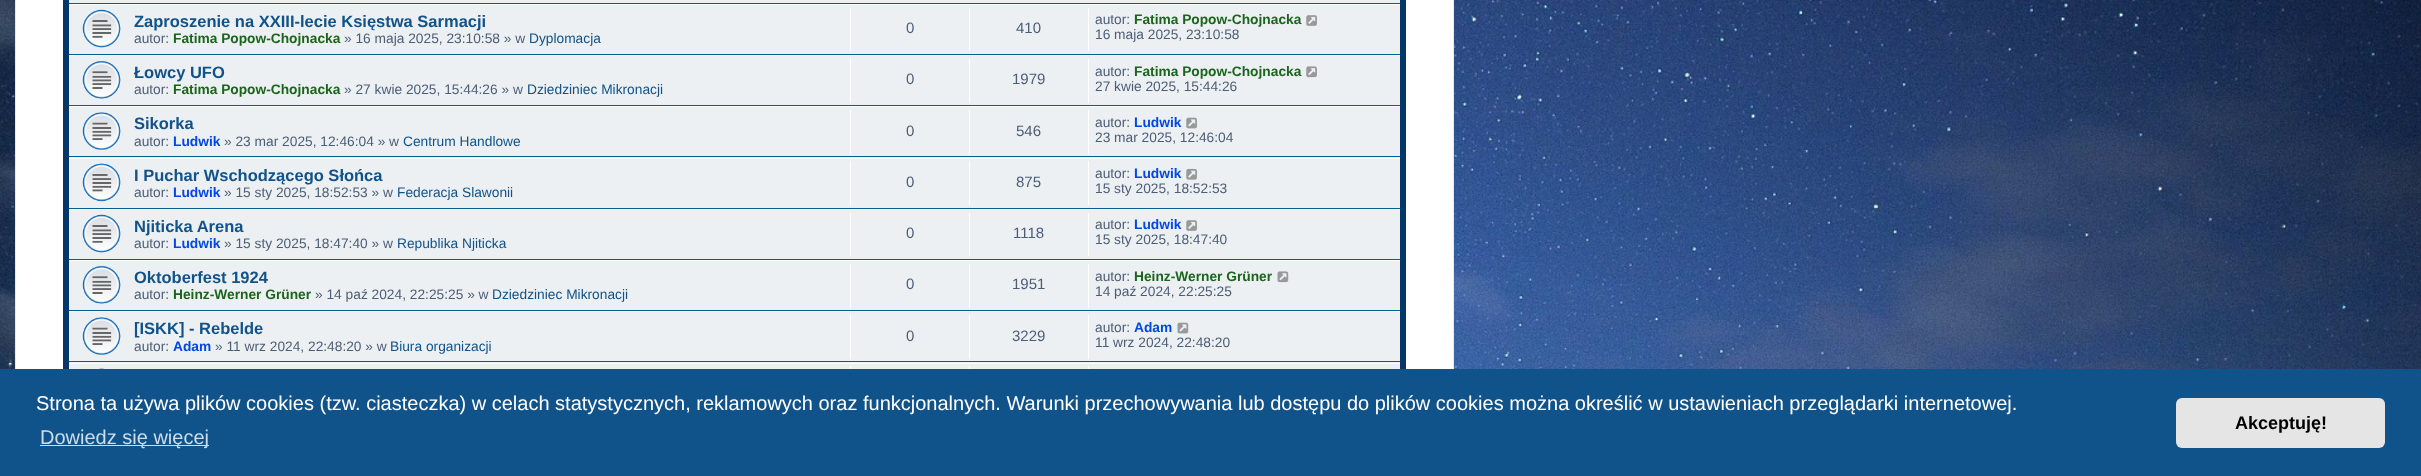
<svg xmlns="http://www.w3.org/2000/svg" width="2421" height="476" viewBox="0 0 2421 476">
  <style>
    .t1 { font: bold 16.5px Liberation Sans; fill: #105289; }
    .t2 { font: 13.75px Liberation Sans; fill: #4c5d77; }
    .t3 { font: bold 13.75px Liberation Sans; fill: #1a651b; }
    .t4 { font: 13.75px Liberation Sans; fill: #105289; }
    .t5 { font: 15px Liberation Sans; fill: #4c5d77; }
    .t6 { font: bold 13.75px Liberation Sans; fill: #0147e6; }
    .t7 { font: 20px Liberation Sans; fill: #fff; }
    .t8 { font: 20px Liberation Sans; fill: #cfdde8; }
    .t9 { font: bold 18px Liberation Sans; fill: #000; }
  </style>
  <rect width="100%" height="100%" fill="#fff"/>
  <image x="0" y="0" width="2421" height="369" href="images/1.png"/>
  <rect x="16" y="0" width="1437" height="369" fill="#fff"/>
  <rect x="15.5" y="-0.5" width="1438" height="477" fill="none" stroke="#e6e9ed"/>
  <rect x="63" y="0" width="1343" height="369" fill="#043667"/>
  <rect x="69" y="0" width="1331" height="3" fill="#edf0f2"/>
  <rect x="69" y="3" width="1331" height="1" fill="#00608f"/>
  <rect x="69" y="5" width="1331" height="49" fill="#edf0f2"/>
  <rect x="69" y="4" width="1331" height="1" fill="#fff"/>
  <rect x="69" y="54" width="1331" height="1" fill="#00608f"/>
  <image x="82" y="9" width="39" height="39" href="images/2.png"/>
  <text x="134" y="27" class="t1">Zaproszenie na XXIII-lecie Księstwa Sarmacji</text>
  <text x="134" y="43" class="t2">autor:</text>
  <text x="173" y="43" class="t3">Fatima Popow-Chojnacka</text>
  <text x="344" y="43" class="t2">» 16 maja 2025, 23:10:58 » w</text>
  <text x="529" y="43" class="t4">Dyplomacja</text>
  <rect x="850" y="8" width="1" height="43" fill="#fff"/>
  <text x="906" y="33" class="t5">0</text>
  <rect x="969" y="8" width="1" height="43" fill="#fff"/>
  <text x="1016" y="33" class="t5">410</text>
  <rect x="1088" y="8" width="1" height="43" fill="#fff"/>
  <text x="1095" y="24" class="t2">autor:</text>
  <text x="1134" y="24" class="t3">Fatima Popow-Chojnacka</text>
  <image x="1306" y="15" width="11" height="11" href="images/3.png"/>
  <text x="1095" y="39" class="t2">16 maja 2025, 23:10:58</text>
  <rect x="69" y="56" width="1331" height="49" fill="#edf0f2"/>
  <rect x="69" y="55" width="1331" height="1" fill="#fff"/>
  <rect x="69" y="105" width="1331" height="1" fill="#00608f"/>
  <image x="82" y="60" width="39" height="39" href="images/4.png"/>
  <text x="134" y="78" class="t1">Łowcy UFO</text>
  <text x="134" y="94" class="t2">autor:</text>
  <text x="173" y="94" class="t3">Fatima Popow-Chojnacka</text>
  <text x="344" y="94" class="t2">» 27 kwie 2025, 15:44:26 » w</text>
  <text x="527" y="94" class="t4">Dziedziniec Mikronacji</text>
  <rect x="850" y="59" width="1" height="44" fill="#fff"/>
  <text x="906" y="84" class="t5">0</text>
  <rect x="969" y="59" width="1" height="44" fill="#fff"/>
  <text x="1012" y="84" class="t5">1979</text>
  <rect x="1088" y="59" width="1" height="44" fill="#fff"/>
  <text x="1095" y="76" class="t2">autor:</text>
  <text x="1134" y="76" class="t3">Fatima Popow-Chojnacka</text>
  <image x="1306" y="66" width="11" height="12" href="images/5.png"/>
  <text x="1095" y="91" class="t2">27 kwie 2025, 15:44:26</text>
  <rect x="69" y="107" width="1331" height="51" fill="#edf0f2"/>
  <rect x="69" y="106" width="1331" height="1" fill="#fff"/>
  <rect x="69" y="156" width="1331" height="1" fill="#00608f"/>
  <image x="82" y="112" width="39" height="38" href="images/6.png"/>
  <text x="134" y="129" class="t1">Sikorka</text>
  <text x="134" y="146" class="t2">autor:</text>
  <text x="173" y="146" class="t6">Ludwik</text>
  <text x="224" y="146" class="t2">» 23 mar 2025, 12:46:04 » w</text>
  <text x="403" y="146" class="t4">Centrum Handlowe</text>
  <rect x="850" y="110" width="1" height="44" fill="#fff"/>
  <text x="906" y="136" class="t5">0</text>
  <rect x="969" y="110" width="1" height="44" fill="#fff"/>
  <text x="1016" y="136" class="t5">546</text>
  <rect x="1088" y="110" width="1" height="44" fill="#fff"/>
  <text x="1095" y="127" class="t2">autor:</text>
  <text x="1134" y="127" class="t6">Ludwik</text>
  <image x="1186" y="117" width="11" height="12" href="images/7.png"/>
  <text x="1095" y="142" class="t2">23 mar 2025, 12:46:04</text>
  <rect x="69" y="159" width="1331" height="49" fill="#edf0f2"/>
  <rect x="69" y="158" width="1331" height="1" fill="#fff"/>
  <rect x="69" y="208" width="1331" height="1" fill="#00608f"/>
  <image x="82" y="163" width="39" height="39" href="images/8.png"/>
  <text x="134" y="181" class="t1">I Puchar Wschodzącego Słońca</text>
  <text x="134" y="197" class="t2">autor:</text>
  <text x="173" y="197" class="t6">Ludwik</text>
  <text x="224" y="197" class="t2">» 15 sty 2025, 18:52:53 » w</text>
  <text x="397" y="197" class="t4">Federacja Slawonii</text>
  <rect x="850" y="161" width="1" height="44" fill="#fff"/>
  <text x="906" y="187" class="t5">0</text>
  <rect x="969" y="161" width="1" height="44" fill="#fff"/>
  <text x="1016" y="187" class="t5">875</text>
  <rect x="1088" y="161" width="1" height="44" fill="#fff"/>
  <text x="1095" y="178" class="t2">autor:</text>
  <text x="1134" y="178" class="t6">Ludwik</text>
  <image x="1186" y="168" width="11" height="12" href="images/9.png"/>
  <text x="1095" y="193" class="t2">15 sty 2025, 18:52:53</text>
  <rect x="69" y="210" width="1331" height="49" fill="#edf0f2"/>
  <rect x="69" y="209" width="1331" height="1" fill="#fff"/>
  <rect x="69" y="259" width="1331" height="1" fill="#00608f"/>
  <image x="82" y="214" width="39" height="39" href="images/10.png"/>
  <text x="134" y="232" class="t1">Njiticka Arena</text>
  <text x="134" y="248" class="t2">autor:</text>
  <text x="173" y="248" class="t6">Ludwik</text>
  <text x="224" y="248" class="t2">» 15 sty 2025, 18:47:40 » w</text>
  <text x="397" y="248" class="t4">Republika Njiticka</text>
  <rect x="850" y="213" width="1" height="43" fill="#fff"/>
  <text x="906" y="238" class="t5">0</text>
  <rect x="969" y="213" width="1" height="43" fill="#fff"/>
  <text x="1013" y="238" class="t5">1118</text>
  <rect x="1088" y="213" width="1" height="43" fill="#fff"/>
  <text x="1095" y="229" class="t2">autor:</text>
  <text x="1134" y="229" class="t6">Ludwik</text>
  <image x="1186" y="220" width="11" height="11" href="images/3.png"/>
  <text x="1095" y="244" class="t2">15 sty 2025, 18:47:40</text>
  <rect x="69" y="261" width="1331" height="49" fill="#edf0f2"/>
  <rect x="69" y="260" width="1331" height="1" fill="#fff"/>
  <rect x="69" y="310" width="1331" height="1" fill="#00608f"/>
  <image x="82" y="265" width="39" height="39" href="images/4.png"/>
  <text x="134" y="283" class="t1">Oktoberfest 1924</text>
  <text x="134" y="299" class="t2">autor:</text>
  <text x="173" y="299" class="t3">Heinz-Werner Grüner</text>
  <text x="315" y="299" class="t2">» 14 paź 2024, 22:25:25 » w</text>
  <text x="492" y="299" class="t4">Dziedziniec Mikronacji</text>
  <rect x="850" y="264" width="1" height="44" fill="#fff"/>
  <text x="906" y="289" class="t5">0</text>
  <rect x="969" y="264" width="1" height="44" fill="#fff"/>
  <text x="1012" y="289" class="t5">1951</text>
  <rect x="1088" y="264" width="1" height="44" fill="#fff"/>
  <text x="1095" y="281" class="t2">autor:</text>
  <text x="1134" y="281" class="t3">Heinz-Werner Grüner</text>
  <image x="1277" y="271" width="12" height="12" href="images/11.png"/>
  <text x="1095" y="296" class="t2">14 paź 2024, 22:25:25</text>
  <rect x="69" y="312" width="1331" height="51" fill="#edf0f2"/>
  <rect x="69" y="311" width="1331" height="1" fill="#fff"/>
  <rect x="69" y="361" width="1331" height="1" fill="#00608f"/>
  <image x="82" y="317" width="39" height="38" href="images/6.png"/>
  <text x="134" y="334" class="t1">[ISKK] - Rebelde</text>
  <text x="134" y="351" class="t2">autor:</text>
  <text x="173" y="351" class="t6">Adam</text>
  <text x="215" y="351" class="t2">» 11 wrz 2024, 22:48:20 » w</text>
  <text x="390" y="351" class="t4">Biura organizacji</text>
  <rect x="850" y="315" width="1" height="44" fill="#fff"/>
  <text x="906" y="341" class="t5">0</text>
  <rect x="969" y="315" width="1" height="44" fill="#fff"/>
  <text x="1012" y="341" class="t5">3229</text>
  <rect x="1088" y="315" width="1" height="44" fill="#fff"/>
  <text x="1095" y="332" class="t2">autor:</text>
  <text x="1134" y="332" class="t6">Adam</text>
  <image x="1177" y="322" width="12" height="12" href="images/12.png"/>
  <text x="1095" y="347" class="t2">11 wrz 2024, 22:48:20</text>
  <rect x="69" y="364" width="1331" height="5" fill="#edf0f2"/>
  <rect x="69" y="363" width="1331" height="1" fill="#fff"/>
  <image x="98" y="368" width="7" height="1" href="images/13.png"/>
  <rect x="850" y="366" width="1" height="3" fill="#fff"/>
  <rect x="969" y="366" width="1" height="3" fill="#fff"/>
  <rect x="1088" y="366" width="1" height="3" fill="#fff"/>
  <rect x="0" y="369" width="2421" height="107" fill="#0f538a"/>
  <text x="36" y="410" class="t7">Strona ta używa plików cookies (tzw. ciasteczka) w celach statystycznych, reklamowych oraz funkcjonalnych. Warunki przechowywania lub dostępu do plików cookies można określić w ustawieniach przeglądarki internetowej.</text>
  <rect x="40" y="445" width="169" height="1" fill="#cfdde8"/>
  <text x="40" y="444" class="t8">Dowiedz się więcej</text>
  <rect x="2176" y="398" width="209" height="50" rx="6" fill="#e5e5e5"/>
  <text x="2235" y="429" class="t9">Akceptuję!</text>
</svg>
